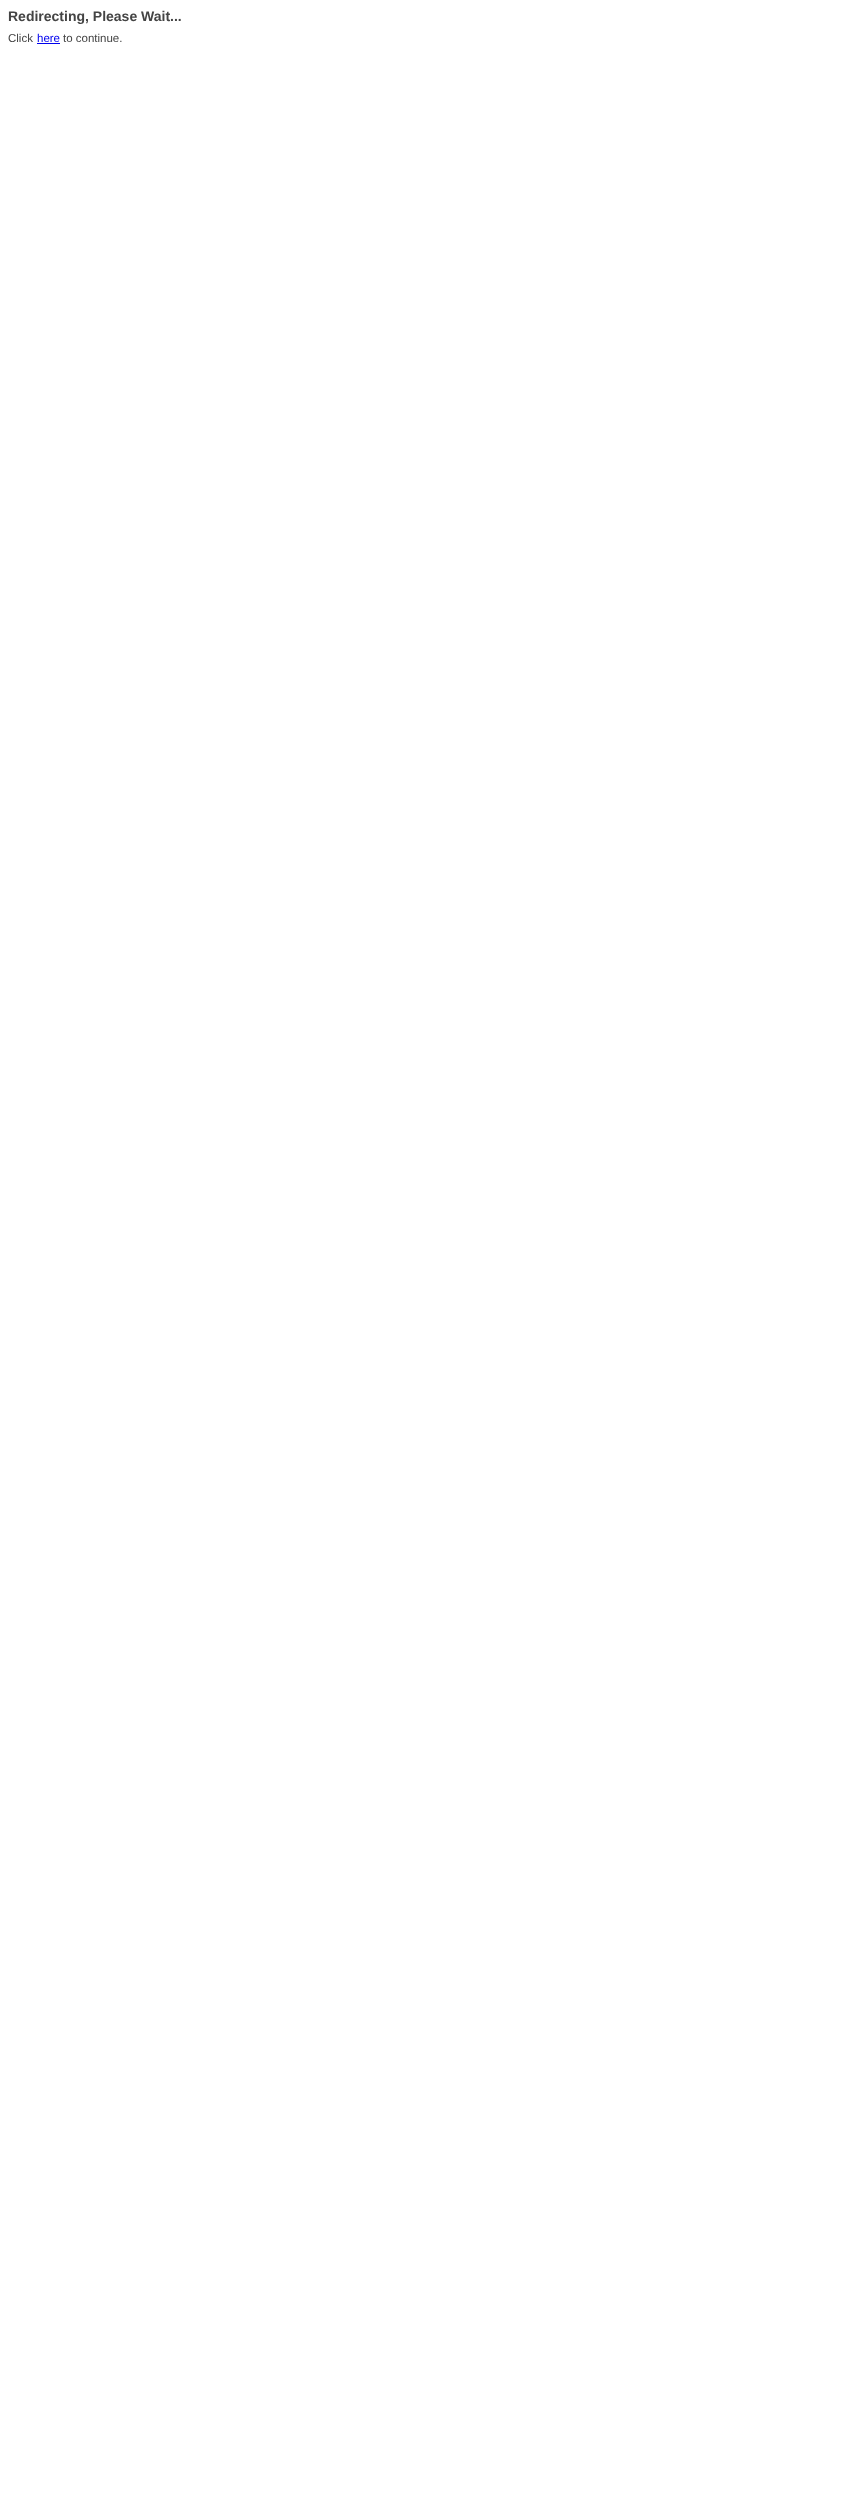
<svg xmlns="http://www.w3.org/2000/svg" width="847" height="2515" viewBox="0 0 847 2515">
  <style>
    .t1 { font: bold 14px Liberation Sans; fill: #444; }
    .t2 { font: 11.5px Liberation Sans; fill: #444; }
    .t3 { font: 11.5px Liberation Sans; fill: #00e; }
  </style>
  <rect width="100%" height="100%" fill="#fff"/>
  <text x="8" y="21" class="t1">Redirecting, Please Wait...</text>
  <text x="8" y="42" class="t2">Click</text>
  <text x="37" y="42" class="t3">here</text>
  <rect x="37" y="43" width="23" height="1" fill="#00e"/>
  <text x="63" y="42" class="t2">to continue.</text>
</svg>
